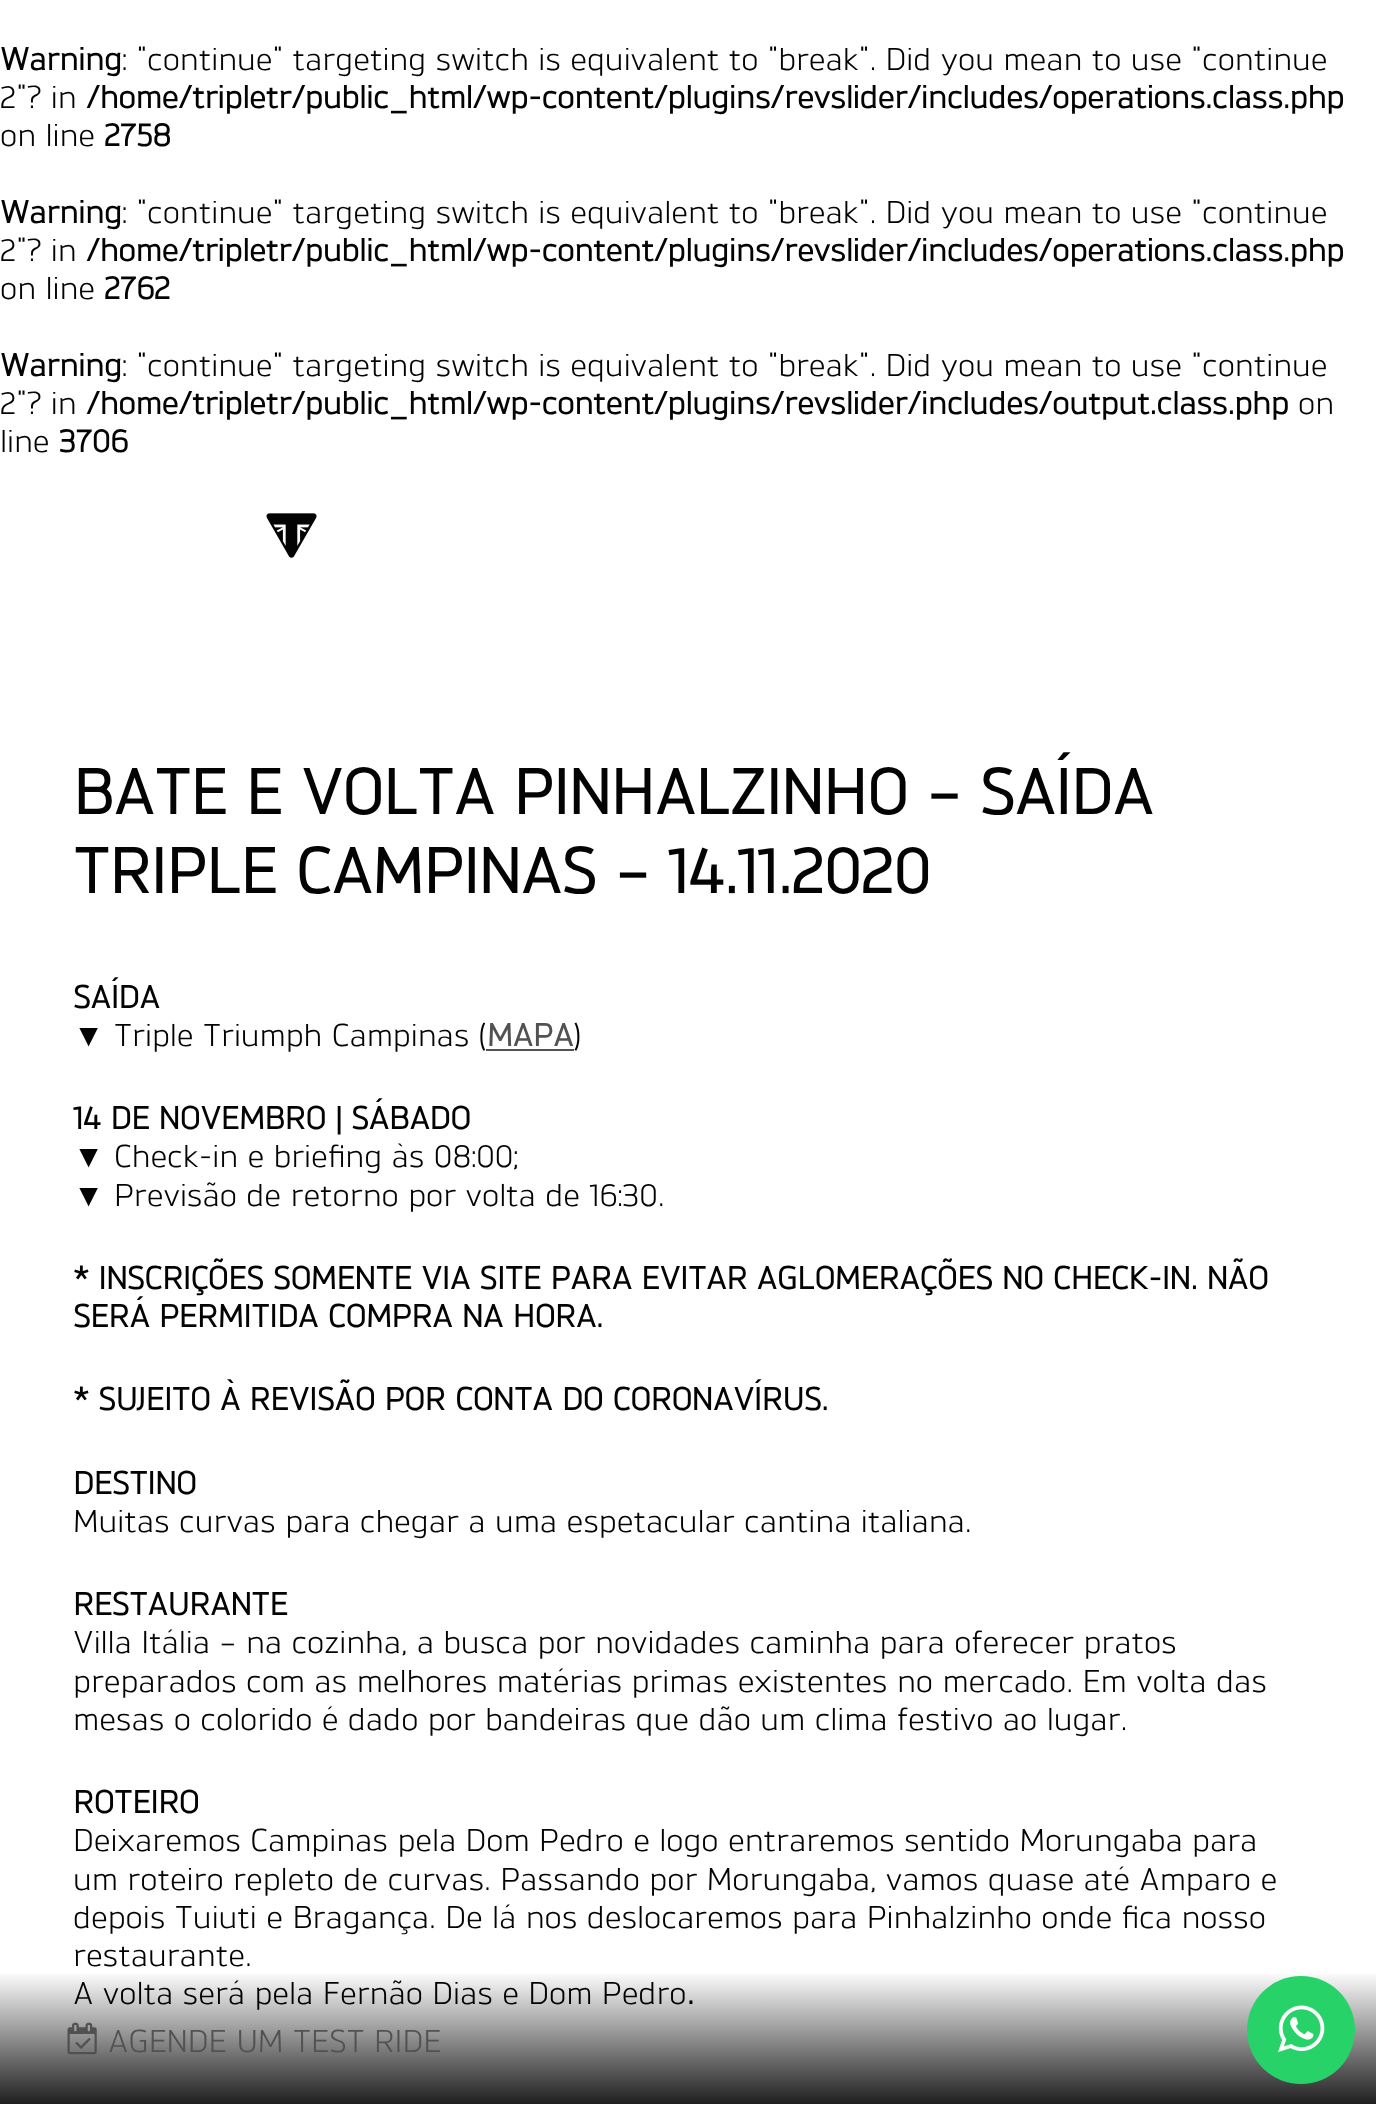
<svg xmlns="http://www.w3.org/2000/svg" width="1376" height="2104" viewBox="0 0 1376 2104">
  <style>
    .t1 { font: bold 31.5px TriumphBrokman; fill: #030303; }
    .t2 { font: 31.5px TriumphBrokman; fill: #030303; }
    .t3 { font: bold 63px TriumphBrokman; fill: #030303; }
    .t4 { font: 31.5px Liberation Sans; fill: #030303; }
    .t5 { font: bold 31.5px TriumphBrokman; fill: #525252; }
    .t6 { font: 31.5px TriumphBrokman; fill: #525252; }
  </style>
  <defs>
    <linearGradient id="g1" gradientUnits="userSpaceOnUse" x1="689" y1="1971" x2="689" y2="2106"><stop offset="0" stop-color="#030303" stop-opacity="0"/><stop offset="1" stop-color="#030303" stop-opacity="0.9"/></linearGradient>
  </defs>
  <rect width="100%" height="100%" fill="#fff"/>
  <text x="0" y="70" class="t1">Warning</text>
  <text x="122" y="70" class="t2">: "continue" targeting switch is equivalent to "break". Did you mean to use "continue</text>
  <text x="0" y="108" class="t2">2"? in</text>
  <text x="86" y="108" class="t1">/home/tripletr/public_html/wp-content/plugins/revslider/includes/operations.class.php</text>
  <text x="0" y="146" class="t2">on line</text>
  <text x="104" y="146" class="t1">2758</text>
  <text x="0" y="223" class="t1">Warning</text>
  <text x="122" y="223" class="t2">: "continue" targeting switch is equivalent to "break". Did you mean to use "continue</text>
  <text x="0" y="261" class="t2">2"? in</text>
  <text x="86" y="261" class="t1">/home/tripletr/public_html/wp-content/plugins/revslider/includes/operations.class.php</text>
  <text x="0" y="299" class="t2">on line</text>
  <text x="104" y="299" class="t1">2762</text>
  <text x="0" y="376" class="t1">Warning</text>
  <text x="122" y="376" class="t2">: "continue" targeting switch is equivalent to "break". Did you mean to use "continue</text>
  <text x="0" y="414" class="t2">2"? in</text>
  <text x="86" y="414" class="t1">/home/tripletr/public_html/wp-content/plugins/revslider/includes/output.class.php</text>
  <text x="1298" y="414" class="t2">on</text>
  <text x="0" y="452" class="t2">line</text>
  <text x="59" y="452" class="t1">3706</text>
  <image x="266" y="513" width="51" height="45" href="images/1.png"/>
  <text x="73" y="814" class="t3">BATE E VOLTA PINHALZINHO – SAÍDA</text>
  <text x="73" y="893" class="t3">TRIPLE CAMPINAS – 14.11.2020</text>
  <text x="73" y="1008" class="t1">SAÍDA</text>
  <text x="73" y="1046" class="t4">▼</text>
  <text x="114" y="1046" class="t2">Triple Triumph Campinas (</text>
  <text x="487" y="1046" class="t5">MAPA</text>
  <rect x="486" y="1049" width="88" height="2" fill="#525252"/>
  <text x="573" y="1046" class="t2">)</text>
  <text x="73" y="1129" class="t1">14 DE NOVEMBRO | SÁBADO</text>
  <text x="73" y="1167" class="t4">▼</text>
  <text x="114" y="1167" class="t2">Check-in e briefing às 08:00;</text>
  <text x="73" y="1206" class="t4">▼</text>
  <text x="114" y="1206" class="t2">Previsão de retorno por volta de 16:30.</text>
  <text x="73" y="1289" class="t1">* INSCRIÇÕES SOMENTE VIA SITE PARA EVITAR AGLOMERAÇÕES NO CHECK-IN. NÃO</text>
  <text x="73" y="1327" class="t1">SERÁ PERMITIDA COMPRA NA HORA.</text>
  <text x="73" y="1410" class="t1">* SUJEITO À REVISÃO POR CONTA DO CORONAVÍRUS.</text>
  <text x="73" y="1494" class="t1">DESTINO</text>
  <text x="73" y="1532" class="t2">Muitas curvas para chegar a uma espetacular cantina italiana.</text>
  <text x="73" y="1615" class="t1">RESTAURANTE</text>
  <text x="73" y="1653" class="t2">Villa Itália – na cozinha, a busca por novidades caminha para oferecer pratos</text>
  <text x="73" y="1692" class="t2">preparados com as melhores matérias primas existentes no mercado. Em volta das</text>
  <text x="73" y="1730" class="t2">mesas o colorido é dado por bandeiras que dão um clima festivo ao lugar.</text>
  <text x="73" y="1813" class="t1">ROTEIRO</text>
  <text x="73" y="1851" class="t2">Deixaremos Campinas pela Dom Pedro e logo entraremos sentido Morungaba para</text>
  <text x="73" y="1890" class="t2">um roteiro repleto de curvas. Passando por Morungaba, vamos quase até Amparo e</text>
  <text x="73" y="1928" class="t2">depois Tuiuti e Bragança. De lá nos deslocaremos para Pinhalzinho onde fica nosso</text>
  <text x="73" y="1966" class="t2">restaurante.</text>
  <text x="73" y="2004" class="t2">A volta será pela Fernão Dias e Dom Pedro</text>
  <text x="687" y="2004" class="t1">.</text>
  <rect x="0" y="1974" width="1376" height="130" fill="url(#g1)"/>
  <image x="67" y="2022" width="30" height="33" href="images/2.png"/>
  <text x="108" y="2052" class="t6">AGENDE UM TEST RIDE</text>
  <circle cx="1301" cy="2030" r="54" fill="#27d368"/>
  <image x="1278" y="2005" width="47" height="48" href="images/3.png"/>
</svg>
